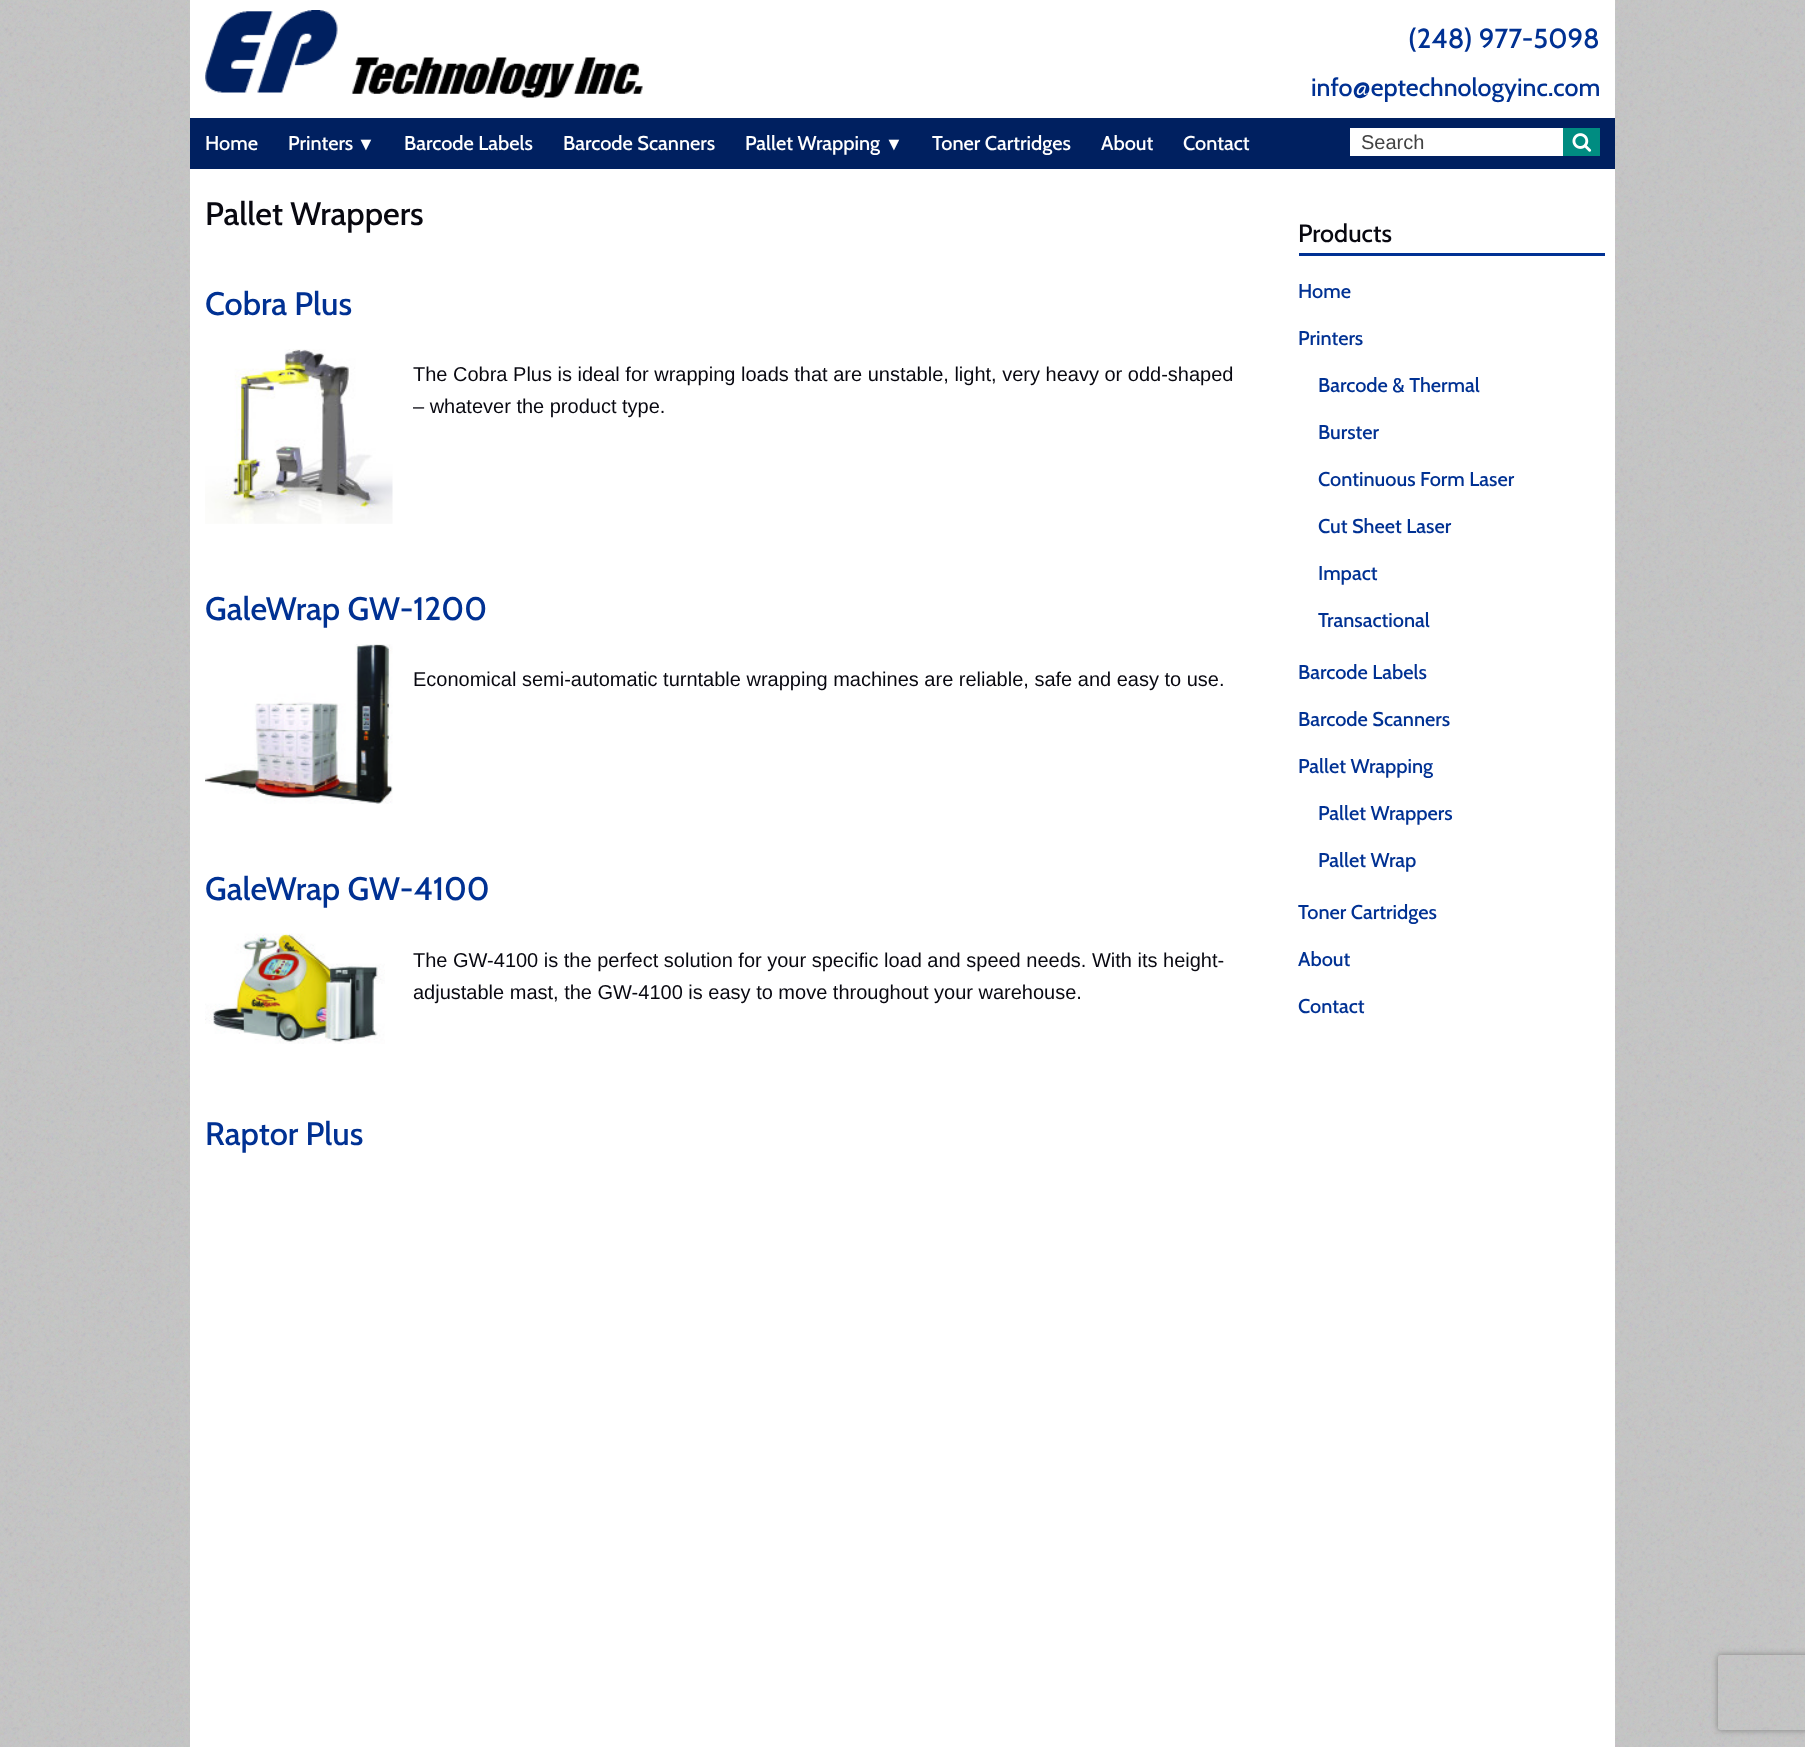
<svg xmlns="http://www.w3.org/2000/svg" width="1805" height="1747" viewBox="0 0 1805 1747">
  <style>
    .t1 { font: 500 27.5px Cabin; fill: #003193; }
    .t2 { font: 500 25px Cabin; fill: #003193; }
    .t3 { font: 500 20px Cabin; fill: #fff; }
    .t4 { font: 18px Liberation Sans; fill: #fff; }
    .t5 { font: 20px Liberation Sans; fill: #424242; }
    .t6 { font: 500 32.5px Cabin; fill: #080810; }
    .t7 { font: 500 32.5px Cabin; fill: #003193; }
    .t8 { font: 20px Liberation Sans; fill: #080810; }
    .t9 { font: 500 25px Cabin; fill: #080810; }
    .t10 { font: 500 20px Cabin; fill: #003193; }
  </style>
  <defs>
    <clipPath id="clip1"><path d="M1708 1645H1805V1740H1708ZM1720.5 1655H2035.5C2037 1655 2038 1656 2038 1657.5V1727.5C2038 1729 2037 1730 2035.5 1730H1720.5C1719 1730 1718 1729 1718 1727.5V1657.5C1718 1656 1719 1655 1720.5 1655Z" clip-rule="evenodd"/></clipPath>
  </defs>
  <rect width="100%" height="100%" fill="#c6c6c6"/>
  <image x="0" y="0" width="1805" height="1747" href="images/1.png"/>
  <rect x="190" y="0" width="1425" height="118" fill="#fff"/>
  <image x="205" y="10" width="438" height="88" href="images/2.png"/>
  <text x="1408" y="48" class="t1">(248) 977-5098</text>
  <text x="1311" y="96" class="t2">info@eptechnologyinc.com</text>
  <rect x="190" y="118" width="1425" height="51" fill="#002060"/>
  <text x="205" y="150" class="t3">Home</text>
  <text x="288" y="150" class="t3">Printers</text>
  <text x="357" y="150" class="t4">▼</text>
  <text x="404" y="150" class="t3">Barcode Labels</text>
  <text x="563" y="150" class="t3">Barcode Scanners</text>
  <text x="745" y="150" class="t3">Pallet Wrapping</text>
  <text x="885" y="150" class="t4">▼</text>
  <text x="932" y="150" class="t3">Toner Cartridges</text>
  <text x="1101" y="150" class="t3">About</text>
  <text x="1183" y="150" class="t3">Contact</text>
  <rect x="1350" y="128" width="213" height="28" fill="#fff"/>
  <text x="1361" y="149" class="t5">Search</text>
  <rect x="1563" y="128" width="37" height="28" fill="#008c81"/>
  <image x="1572" y="133" width="20" height="19" href="images/3.png"/>
  <rect x="190" y="169" width="1425" height="1578" fill="#fff"/>
  <text x="205" y="225" class="t6">Pallet Wrappers</text>
  <text x="205" y="315" class="t7">Cobra Plus</text>
  <image x="205" y="349" width="188" height="175" href="images/4.png"/>
  <text x="413" y="381" class="t8">The Cobra Plus is ideal for wrapping loads that are unstable, light, very heavy or odd-shaped</text>
  <text x="413" y="413" class="t8">– whatever the product type.</text>
  <text x="205" y="620" class="t7">GaleWrap GW-1200</text>
  <image x="205" y="644" width="188" height="160" href="images/5.png"/>
  <text x="413" y="686" class="t8">Economical semi-automatic turntable wrapping machines are reliable, safe and easy to use.</text>
  <text x="205" y="900" class="t7">GaleWrap GW-4100</text>
  <image x="205" y="933" width="180" height="111" href="images/6.png"/>
  <text x="413" y="967" class="t8">The GW-4100 is the perfect solution for your specific load and speed needs. With its height-</text>
  <text x="413" y="999" class="t8">adjustable mast, the GW-4100 is easy to move throughout your warehouse.</text>
  <text x="205" y="1145" class="t7">Raptor Plus</text>
  <rect x="1299" y="253" width="306" height="3" fill="#003193"/>
  <text x="1298" y="242" class="t9">Products</text>
  <text x="1298" y="298" class="t10">Home</text>
  <text x="1298" y="345" class="t10">Printers</text>
  <text x="1318" y="392" class="t10">Barcode &amp; Thermal</text>
  <text x="1318" y="439" class="t10">Burster</text>
  <text x="1318" y="486" class="t10">Continuous Form Laser</text>
  <text x="1318" y="533" class="t10">Cut Sheet Laser</text>
  <text x="1318" y="580" class="t10">Impact</text>
  <text x="1318" y="627" class="t10">Transactional</text>
  <text x="1298" y="679" class="t10">Barcode Labels</text>
  <text x="1298" y="726" class="t10">Barcode Scanners</text>
  <text x="1298" y="773" class="t10">Pallet Wrapping</text>
  <text x="1318" y="820" class="t10">Pallet Wrappers</text>
  <text x="1318" y="867" class="t10">Pallet Wrap</text>
  <text x="1298" y="919" class="t10">Toner Cartridges</text>
  <text x="1298" y="966" class="t10">About</text>
  <text x="1298" y="1013" class="t10">Contact</text>
  <g clip-path="url(#clip1)">
    <rect x="1718" y="1655" width="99" height="75" rx="2.5" fill="#808080" filter="blur(3px)"/>
  </g>
</svg>
